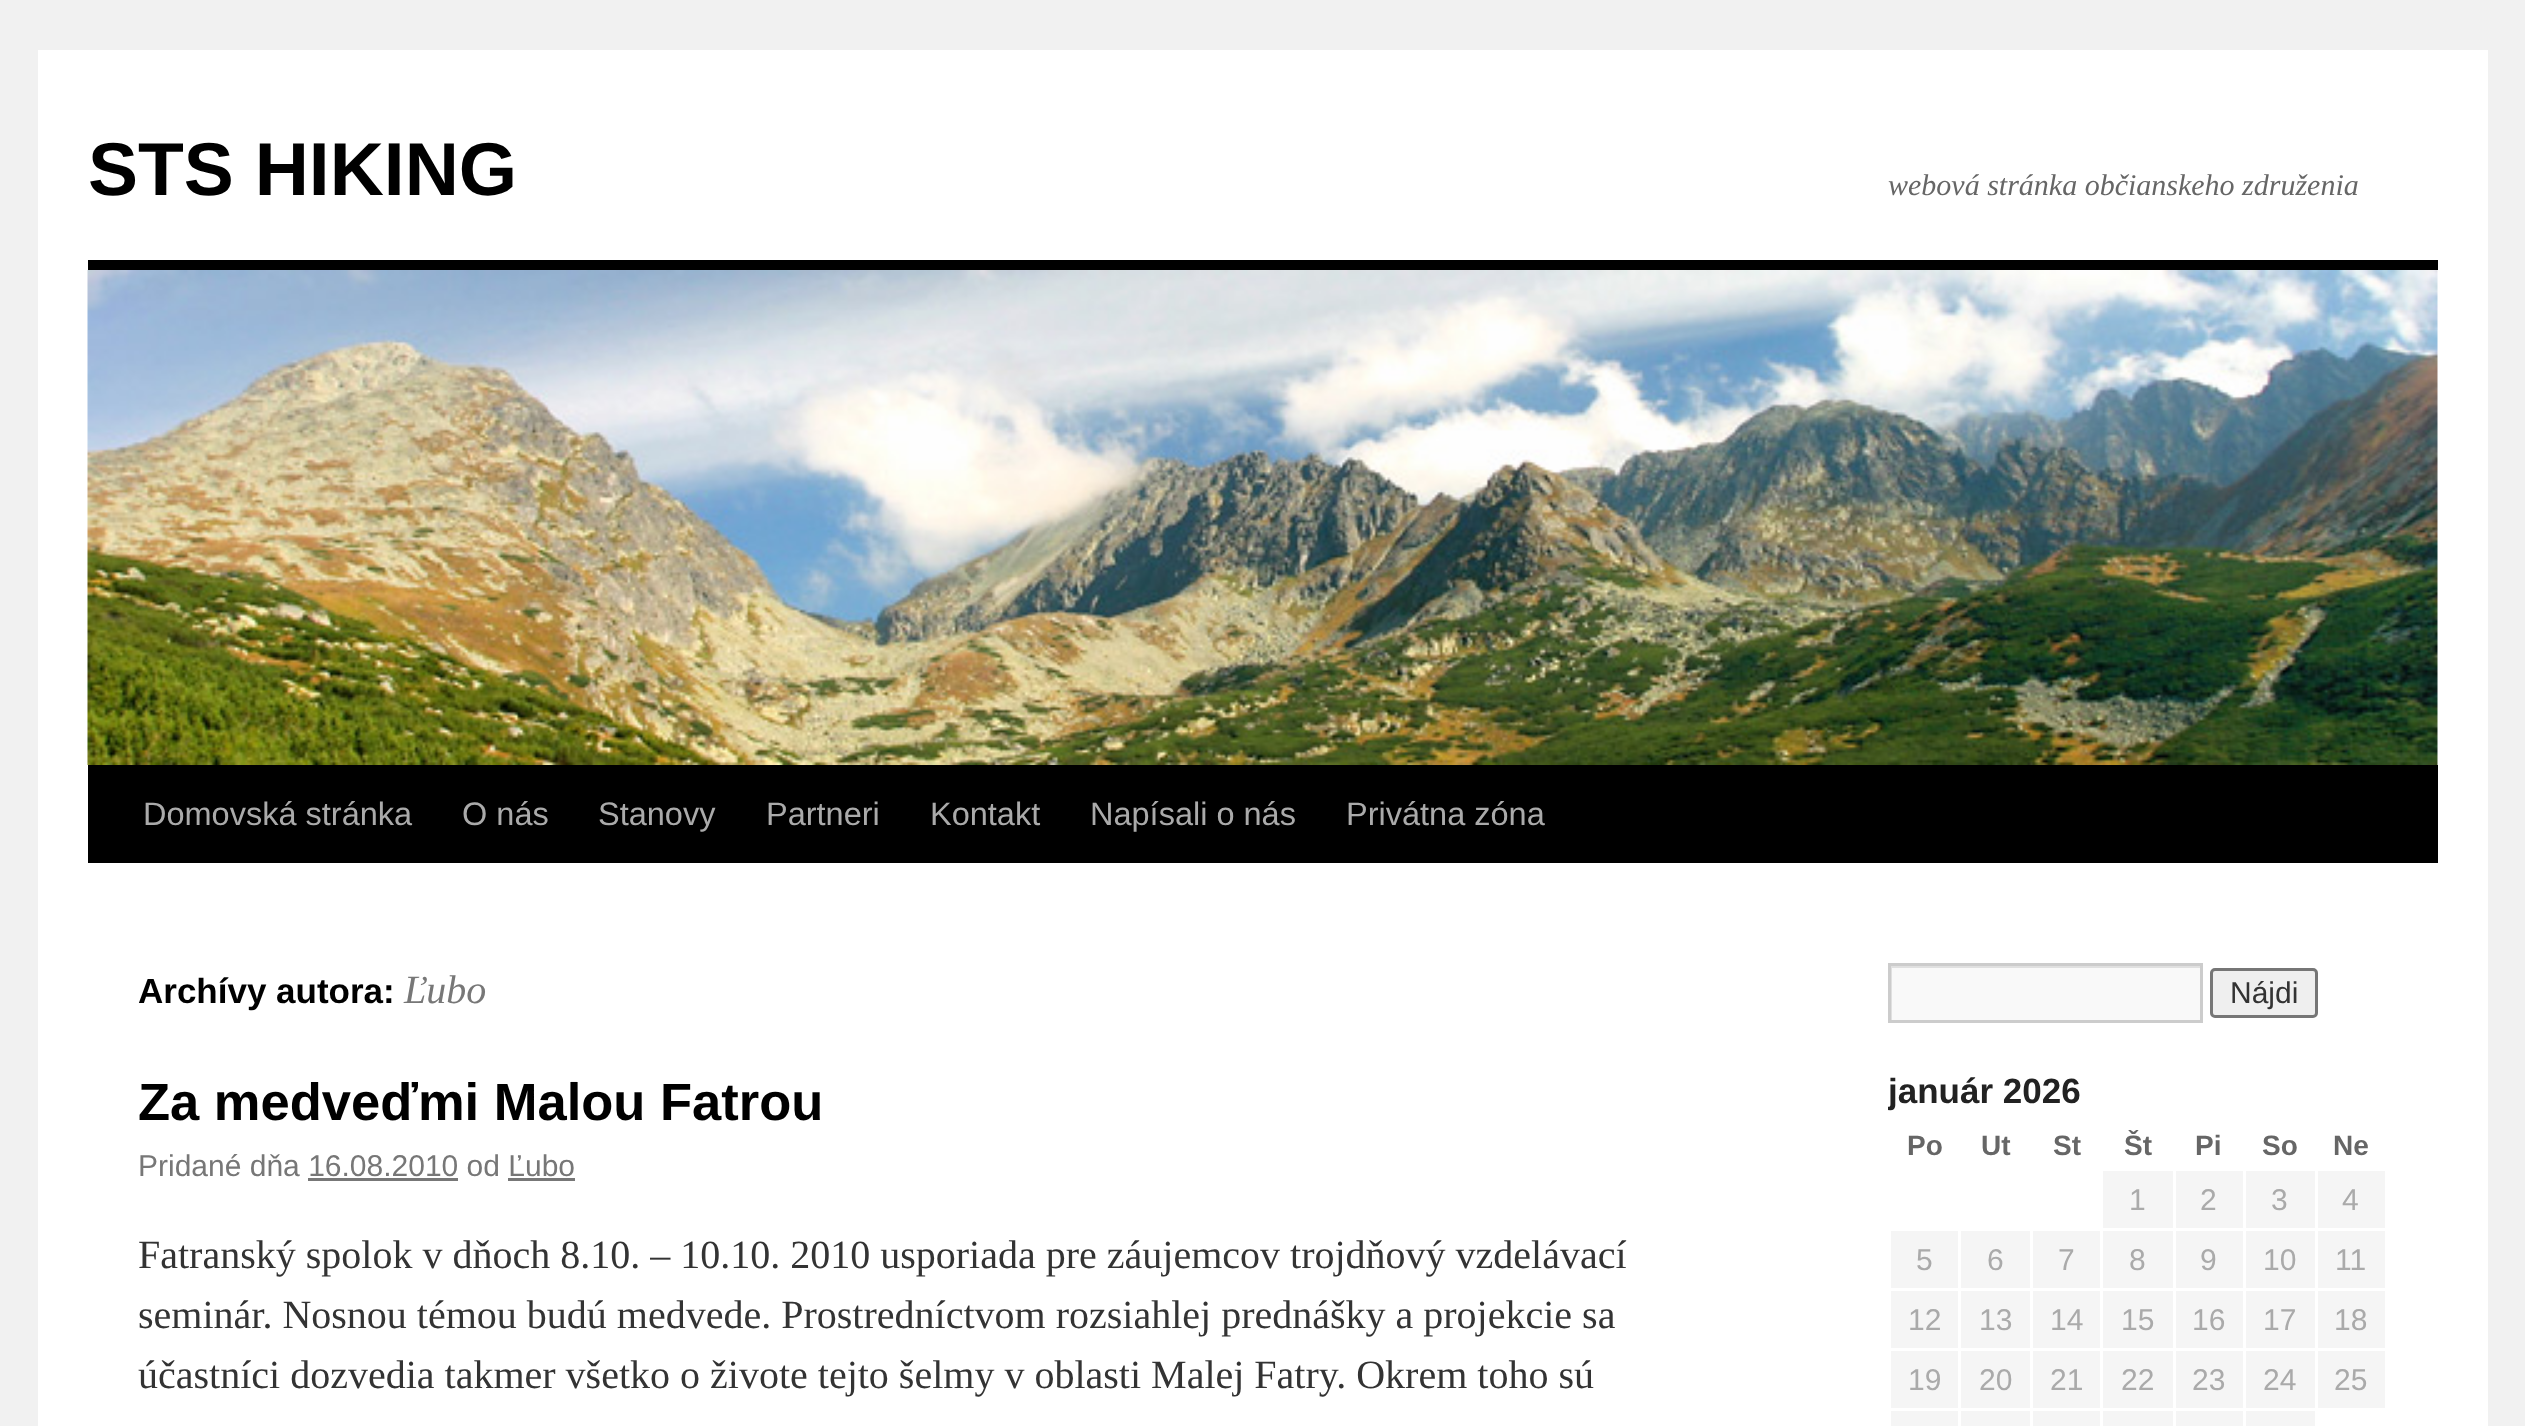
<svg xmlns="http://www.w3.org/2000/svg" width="2525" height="1426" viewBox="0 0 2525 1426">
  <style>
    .t1 { font: bold 75px Liberation Sans; fill: #000; }
    .t2 { font: italic 30px Liberation Serif; fill: #666; }
    .t3 { font: 32.5px Liberation Sans; fill: #aaa; }
    .t4 { font: bold 35px Liberation Sans; fill: #000; }
    .t5 { font: italic 40px Liberation Serif; fill: #777; }
    .t6 { font: bold 52.5px Liberation Sans; fill: #000; }
    .t7 { font: 30px Liberation Sans; fill: #777; }
    .t8 { font: 40px Liberation Serif; fill: #333; }
    .t9 { font: 30px Liberation Sans; fill: #333; }
    .t10 { font: bold 35px Liberation Sans; fill: #222; }
    .t11 { font: bold 28px Liberation Sans; fill: #666; }
    .t12 { font: 30px Liberation Sans; fill: #aaa; }
  </style>
  <defs>
    <clipPath id="clip1"><rect x="1890" y="965" width="310" height="55"/></clipPath>
    <clipPath id="clip2"><rect x="1888" y="963" width="550" height="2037"/></clipPath>
  </defs>
  <rect width="100%" height="100%" fill="#f1f1f1"/>
  <rect x="38" y="50" width="2450" height="1376" fill="#fff"/>
  <text x="88" y="195" class="t1">STS HIKING</text>
  <text x="1888" y="195" class="t2">webová stránka občianskeho združenia</text>
  <rect x="88" y="260" width="2350" height="10" fill="#000"/>
  <rect x="88" y="765" width="2350" height="98" fill="#000"/>
  <image x="87" y="270" width="2351" height="495" href="images/1.png"/>
  <text x="143" y="825" class="t3">Domovská stránka</text>
  <text x="462" y="825" class="t3">O nás</text>
  <text x="598" y="825" class="t3">Stanovy</text>
  <text x="766" y="825" class="t3">Partneri</text>
  <text x="930" y="825" class="t3">Kontakt</text>
  <text x="1090" y="825" class="t3">Napísali o nás</text>
  <text x="1346" y="825" class="t3">Privátna zóna</text>
  <text x="138" y="1003" class="t4">Archívy autora:</text>
  <text x="404" y="1003" class="t5">Ľubo</text>
  <text x="138" y="1120" class="t6">Za medveďmi Malou Fatrou</text>
  <text x="138" y="1176" class="t7">Pridané dňa 16.08.2010 od Ľubo</text>
  <rect x="308" y="1178" width="150" height="3" fill="#777"/>
  <rect x="508" y="1178" width="67" height="3" fill="#777"/>
  <text x="138" y="1268" class="t8">Fatranský spolok v dňoch 8.10. – 10.10. 2010 usporiada pre záujemcov trojdňový vzdelávací</text>
  <text x="138" y="1328" class="t8">seminár. Nosnou témou budú medvede. Prostredníctvom rozsiahlej prednášky a projekcie sa</text>
  <text x="138" y="1388" class="t8">účastníci dozvedia takmer všetko o živote tejto šelmy v oblasti Malej Fatry. Okrem toho sú</text>
  <rect x="1892" y="968" width="308" height="52" fill="#f9f9f9"/>
  <g clip-path="url(#clip1)">
    <path d="M1642 718H2448V1268H1642ZM1892 968H2202V1022H1892Z" fill="#e0e0e0" fill-rule="evenodd"/>
  </g>
  <rect x="1889.5" y="964.5" width="312" height="57" fill="none" stroke="#ccc" stroke-width="3"/>
  <rect x="2211.5" y="969.5" width="105" height="47" rx="3.5" fill="#efefef" stroke="#767676" stroke-width="3"/>
  <text x="2230" y="1003" class="t9">Nájdi</text>
  <g clip-path="url(#clip2)">
    <text x="1888" y="1103" class="t10">január 2026</text>
  </g>
  <text x="1907" y="1155" class="t11">Po</text>
  <text x="1981" y="1155" class="t11">Ut</text>
  <text x="2053" y="1155" class="t11">St</text>
  <text x="2124" y="1155" class="t11">Št</text>
  <text x="2195" y="1155" class="t11">Pi</text>
  <text x="2262" y="1155" class="t11">So</text>
  <text x="2333" y="1155" class="t11">Ne</text>
  <rect x="2103" y="1171" width="70" height="57" fill="#f5f5f5"/>
  <text x="2129" y="1210" class="t12">1</text>
  <rect x="2176" y="1171" width="67" height="57" fill="#f5f5f5"/>
  <text x="2200" y="1210" class="t12">2</text>
  <rect x="2246" y="1171" width="69" height="57" fill="#f5f5f5"/>
  <text x="2271" y="1210" class="t12">3</text>
  <rect x="2318" y="1171" width="67" height="57" fill="#f5f5f5"/>
  <text x="2342" y="1210" class="t12">4</text>
  <rect x="1891" y="1231" width="67" height="57" fill="#f5f5f5"/>
  <text x="1916" y="1270" class="t12">5</text>
  <rect x="1961" y="1231" width="69" height="57" fill="#f5f5f5"/>
  <text x="1987" y="1270" class="t12">6</text>
  <rect x="2033" y="1231" width="67" height="57" fill="#f5f5f5"/>
  <text x="2058" y="1270" class="t12">7</text>
  <rect x="2103" y="1231" width="70" height="57" fill="#f5f5f5"/>
  <text x="2129" y="1270" class="t12">8</text>
  <rect x="2176" y="1231" width="67" height="57" fill="#f5f5f5"/>
  <text x="2200" y="1270" class="t12">9</text>
  <rect x="2246" y="1231" width="69" height="57" fill="#f5f5f5"/>
  <text x="2263" y="1270" class="t12">10</text>
  <rect x="2318" y="1231" width="67" height="57" fill="#f5f5f5"/>
  <text x="2335" y="1270" class="t12">11</text>
  <rect x="1891" y="1291" width="67" height="57" fill="#f5f5f5"/>
  <text x="1908" y="1330" class="t12">12</text>
  <rect x="1961" y="1291" width="69" height="57" fill="#f5f5f5"/>
  <text x="1979" y="1330" class="t12">13</text>
  <rect x="2033" y="1291" width="67" height="57" fill="#f5f5f5"/>
  <text x="2050" y="1330" class="t12">14</text>
  <rect x="2103" y="1291" width="70" height="57" fill="#f5f5f5"/>
  <text x="2121" y="1330" class="t12">15</text>
  <rect x="2176" y="1291" width="67" height="57" fill="#f5f5f5"/>
  <text x="2192" y="1330" class="t12">16</text>
  <rect x="2246" y="1291" width="69" height="57" fill="#f5f5f5"/>
  <text x="2263" y="1330" class="t12">17</text>
  <rect x="2318" y="1291" width="67" height="57" fill="#f5f5f5"/>
  <text x="2334" y="1330" class="t12">18</text>
  <rect x="1891" y="1351" width="67" height="57" fill="#f5f5f5"/>
  <text x="1908" y="1390" class="t12">19</text>
  <rect x="1961" y="1351" width="69" height="57" fill="#f5f5f5"/>
  <text x="1979" y="1390" class="t12">20</text>
  <rect x="2033" y="1351" width="67" height="57" fill="#f5f5f5"/>
  <text x="2050" y="1390" class="t12">21</text>
  <rect x="2103" y="1351" width="70" height="57" fill="#f5f5f5"/>
  <text x="2121" y="1390" class="t12">22</text>
  <rect x="2176" y="1351" width="67" height="57" fill="#f5f5f5"/>
  <text x="2192" y="1390" class="t12">23</text>
  <rect x="2246" y="1351" width="69" height="57" fill="#f5f5f5"/>
  <text x="2263" y="1390" class="t12">24</text>
  <rect x="2318" y="1351" width="67" height="57" fill="#f5f5f5"/>
  <text x="2334" y="1390" class="t12">25</text>
  <rect x="1891" y="1411" width="67" height="15" fill="#f5f5f5"/>
  <rect x="1961" y="1411" width="69" height="15" fill="#f5f5f5"/>
  <rect x="2033" y="1411" width="67" height="15" fill="#f5f5f5"/>
  <rect x="2103" y="1411" width="70" height="15" fill="#f5f5f5"/>
  <rect x="2176" y="1411" width="67" height="15" fill="#f5f5f5"/>
  <rect x="2246" y="1411" width="69" height="15" fill="#f5f5f5"/>
</svg>
